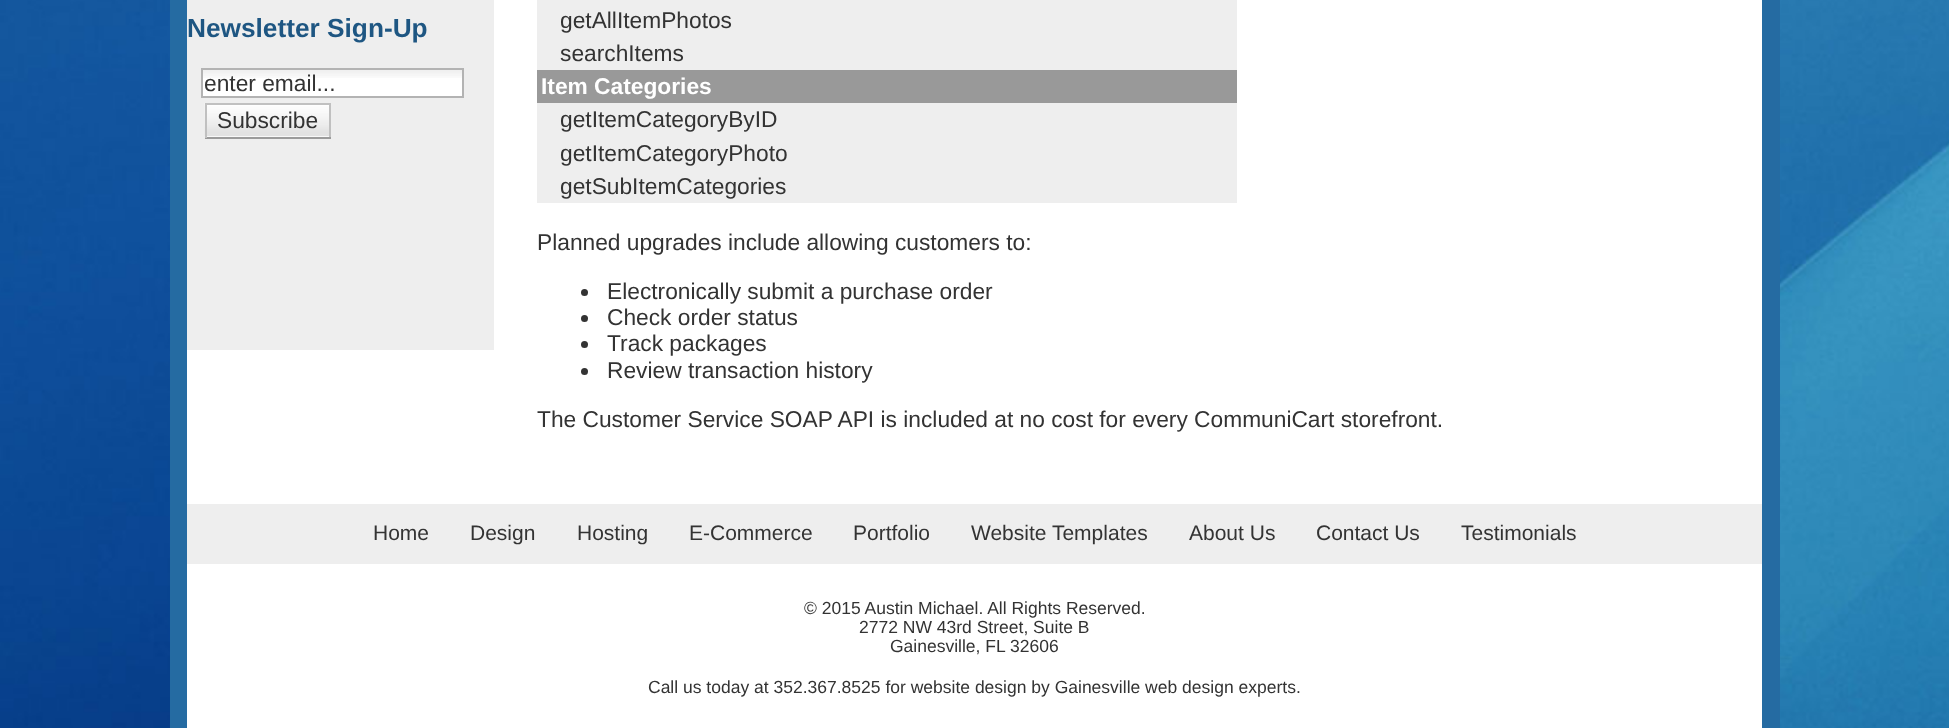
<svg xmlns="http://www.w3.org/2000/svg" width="1949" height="728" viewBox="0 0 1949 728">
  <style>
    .t1 { font: bold 26.25px Liberation Sans; fill: #1e5682; }
    .t2 { font: 22.75px Liberation Sans; fill: #333; }
    .t3 { font: bold 22.75px Liberation Sans; fill: #fff; }
    .t4 { font: 21px Liberation Sans; fill: #333; }
    .t5 { font: 17.5px Liberation Sans; fill: #333; }
  </style>
  <rect width="100%" height="100%" fill="#fff"/>
  <image x="0" y="0" width="1949" height="728" href="images/1.png"/>
  <rect x="187" y="0" width="1575" height="728" fill="#fff"/>
  <rect x="1762" y="0" width="18" height="728" fill="#256ba2"/>
  <rect x="170" y="0" width="17" height="728" fill="#256ba2"/>
  <rect x="187" y="0" width="307" height="350" fill="#eee"/>
  <text x="187" y="37" class="t1">Newsletter Sign-Up</text>
  <rect x="203" y="71" width="259" height="25" fill="#fff"/>
  <image x="203" y="70" width="259" height="8" href="images/2.png"/>
  <rect x="202" y="69" width="261" height="28" fill="none" stroke="#b3b3b3" stroke-width="2"/>
  <text x="204" y="91" class="t2">enter email...</text>
  <rect x="207" y="136" width="122" height="1" fill="#fff"/>
  <image x="204" y="103" width="125" height="34" href="images/3.png"/>
  <rect x="205" y="103" width="126" height="2" fill="#c0c0c0"/>
  <rect x="329" y="103" width="2" height="35" fill="#c0c0c0"/>
  <rect x="205" y="137" width="126" height="2" fill="#9b9b9b"/>
  <rect x="205" y="103" width="2" height="35" fill="#c0c0c0"/>
  <text x="217" y="128" class="t2">Subscribe</text>
  <rect x="537" y="0" width="700" height="203" fill="#eee"/>
  <text x="560" y="28" class="t2">getAllItemPhotos</text>
  <text x="560" y="61" class="t2">searchItems</text>
  <rect x="537" y="70" width="700" height="33" fill="#999"/>
  <text x="541" y="94" class="t3">Item Categories</text>
  <text x="560" y="127" class="t2">getItemCategoryByID</text>
  <text x="560" y="161" class="t2">getItemCategoryPhoto</text>
  <text x="560" y="194" class="t2">getSubItemCategories</text>
  <text x="537" y="250" class="t2">Planned upgrades include allowing customers to:</text>
  <circle cx="584.5" cy="292.5" r="3.5" fill="#333"/>
  <text x="607" y="299" class="t2">Electronically submit a purchase order</text>
  <circle cx="584.5" cy="318.5" r="3.5" fill="#333"/>
  <text x="607" y="325" class="t2">Check order status</text>
  <circle cx="584.5" cy="344.5" r="3.5" fill="#333"/>
  <text x="607" y="351" class="t2">Track packages</text>
  <circle cx="584.5" cy="371.5" r="3.5" fill="#333"/>
  <text x="607" y="378" class="t2">Review transaction history</text>
  <text x="537" y="427" class="t2">The Customer Service SOAP API is included at no cost for every CommuniCart storefront.</text>
  <rect x="187" y="504" width="1575" height="60" fill="#eee"/>
  <text x="373" y="540" class="t4">Home</text>
  <text x="470" y="540" class="t4">Design</text>
  <text x="577" y="540" class="t4">Hosting</text>
  <text x="689" y="540" class="t4">E-Commerce</text>
  <text x="853" y="540" class="t4">Portfolio</text>
  <text x="971" y="540" class="t4">Website Templates</text>
  <text x="1189" y="540" class="t4">About Us</text>
  <text x="1316" y="540" class="t4">Contact Us</text>
  <text x="1461" y="540" class="t4">Testimonials</text>
  <text x="804" y="614" class="t5">© 2015 Austin Michael. All Rights Reserved.</text>
  <text x="859" y="633" class="t5">2772 NW 43rd Street, Suite B</text>
  <text x="890" y="652" class="t5">Gainesville, FL 32606</text>
  <text x="648" y="693" class="t5">Call us today at 352.367.8525 for website design by Gainesville web design experts.</text>
</svg>
